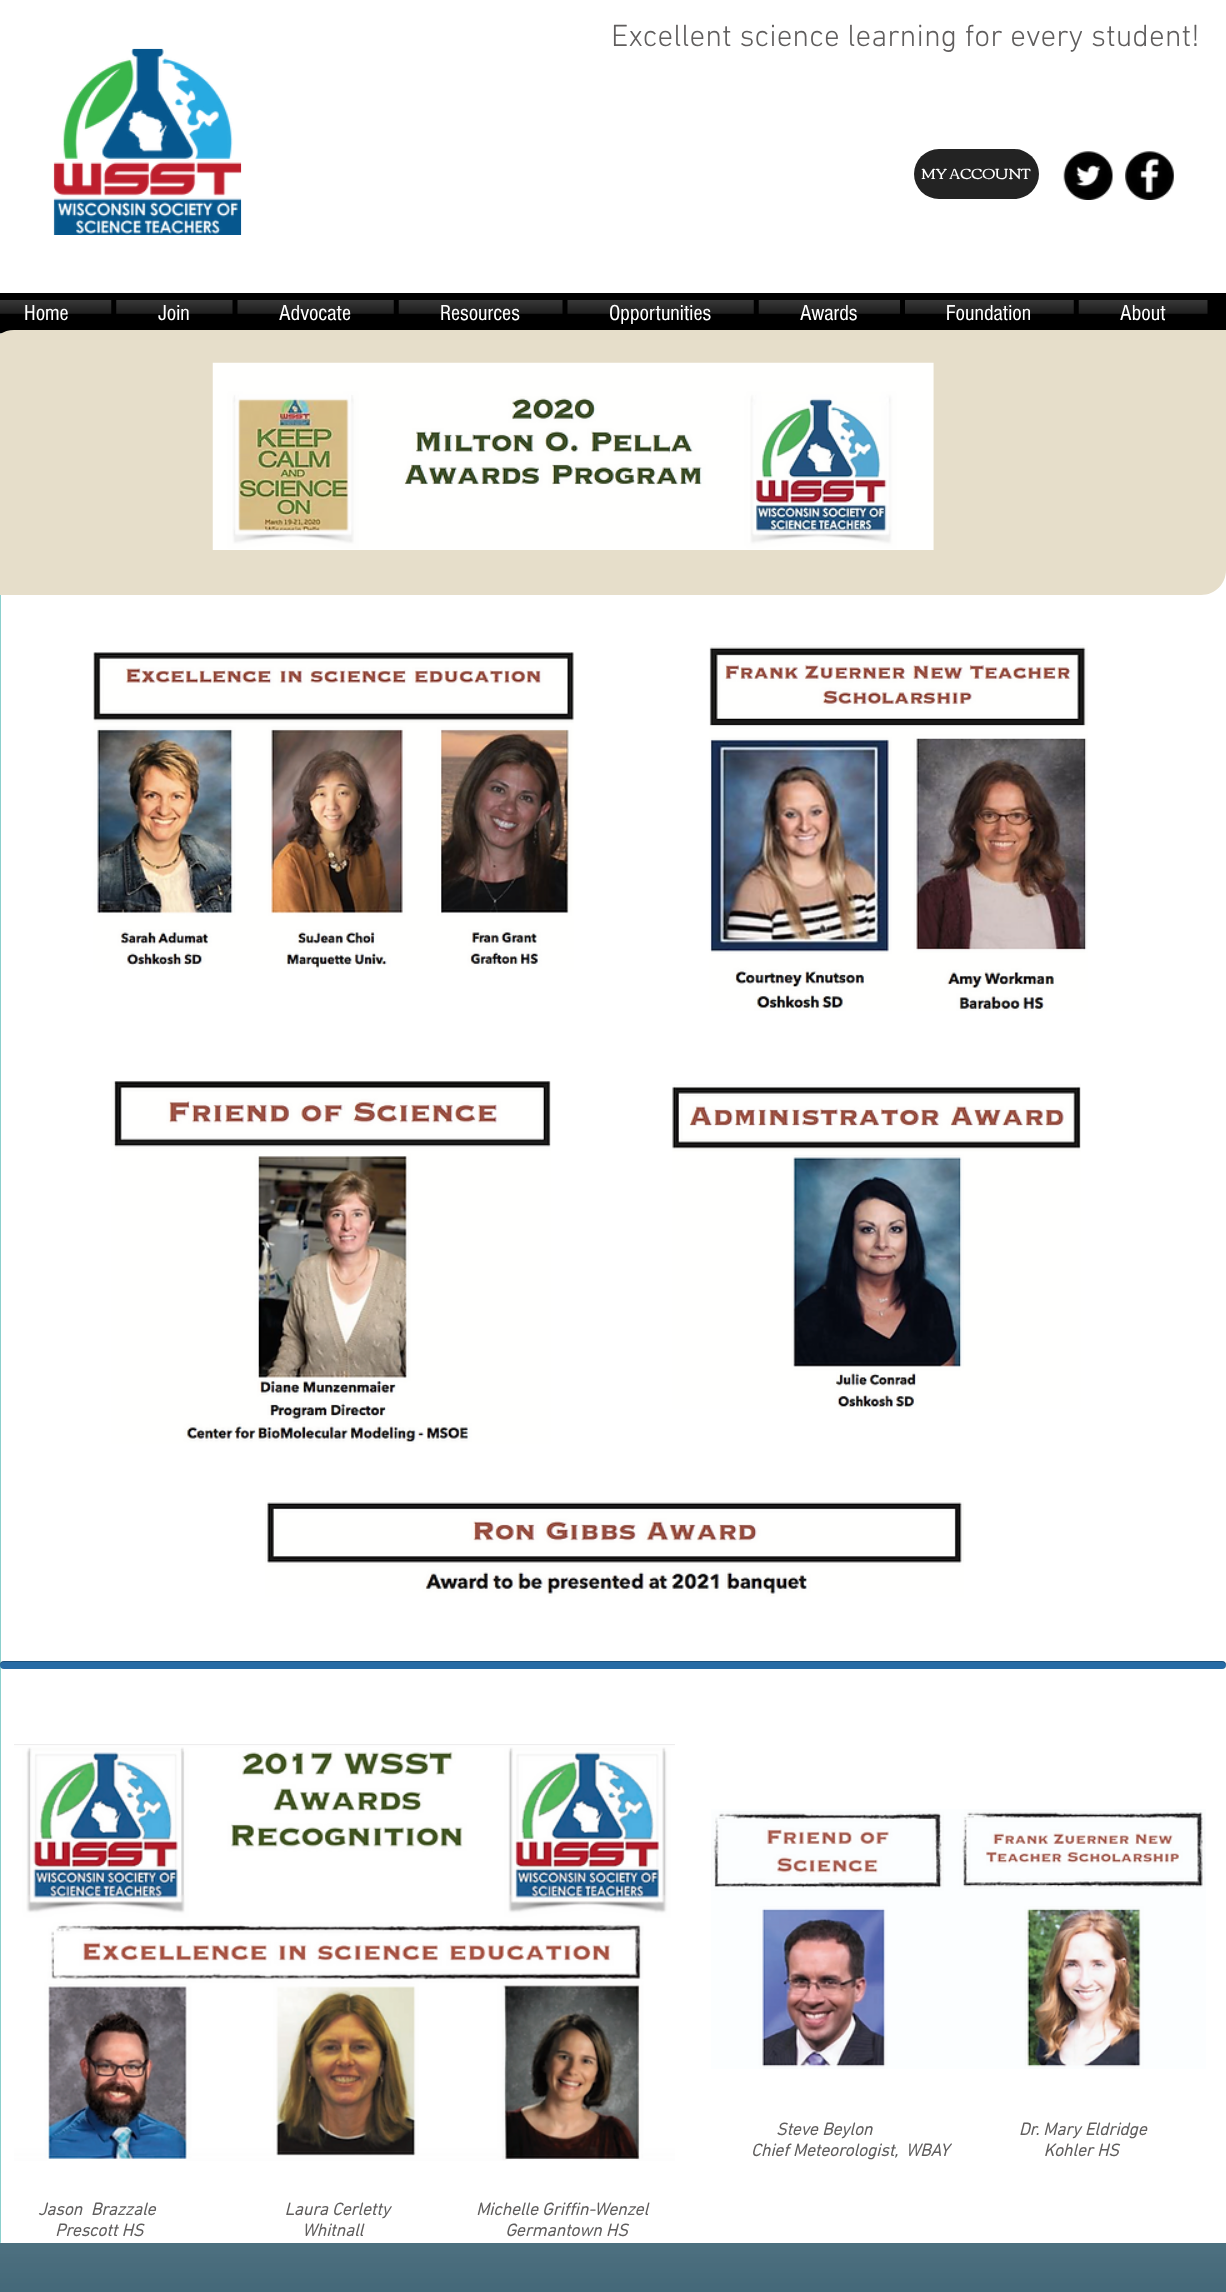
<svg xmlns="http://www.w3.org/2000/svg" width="1226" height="2292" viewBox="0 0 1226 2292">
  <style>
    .t1 { font: 300 31.25px 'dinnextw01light'; fill: #605e5e; }
    .t2 { font: 15px Corben; fill: #fff; }
    .t3 { font: 22.5px 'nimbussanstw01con'; fill: #fff; }
    .t4 { font: italic bold 17.5px 'dinnextw01light'; fill: #605e5e; }
  </style>
  <rect width="100%" height="100%" fill="#8bd0cd"/>
  <rect x="0" y="0" width="1226" height="293" fill="#fff"/>
  <rect x="0" y="333" width="2" height="2" fill="#a0a09f"/>
  <text x="611" y="46" class="t1">Excellent science learning for every student!</text>
  <image x="53" y="48" width="189" height="187" href="images/1.png"/>
  <rect x="914" y="149" width="125" height="50" rx="25" fill="#232323"/>
  <text x="921" y="179" class="t2">MY ACCOUNT</text>
  <image x="1063" y="151" width="50" height="49" href="images/2.png"/>
  <image x="1125" y="151" width="49" height="49" href="images/3.png"/>
  <rect x="0" y="293" width="1226" height="40" fill="#000"/>
  <image x="0" y="300" width="112" height="14" href="images/4.png"/>
  <text x="24" y="320" class="t3">Home</text>
  <image x="116" y="300" width="117" height="14" href="images/5.png"/>
  <text x="158" y="320" class="t3">Join</text>
  <image x="237" y="300" width="157" height="14" href="images/6.png"/>
  <text x="279" y="320" class="t3">Advocate</text>
  <image x="398" y="300" width="165" height="14" href="images/7.png"/>
  <text x="440" y="320" class="t3">Resources</text>
  <image x="567" y="300" width="187" height="14" href="images/8.png"/>
  <text x="609" y="320" class="t3">Opportunities</text>
  <image x="758" y="300" width="142" height="14" href="images/9.png"/>
  <text x="800" y="320" class="t3">Awards</text>
  <image x="905" y="300" width="169" height="14" href="images/10.png"/>
  <text x="946" y="320" class="t3">Foundation</text>
  <image x="1078" y="300" width="130" height="14" href="images/11.png"/>
  <text x="1120" y="320" class="t3">About</text>
  <rect x="1" y="570" width="1225" height="1673" fill="#fff"/>
  <path d="M14 330H1226V570C1226 584 1215 595 1201 595H-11V355C-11 341 0 330 14 330Z" fill="#e6deca"/>
  <image x="212" y="362" width="722" height="188" href="images/12.png"/>
  <image x="93" y="652" width="481" height="318" href="images/13.png"/>
  <image x="709" y="645" width="379" height="366" href="images/14.png"/>
  <image x="111" y="1081" width="440" height="363" href="images/15.png"/>
  <image x="672" y="1084" width="409" height="325" href="images/16.png"/>
  <image x="265" y="1500" width="699" height="97" href="images/17.png"/>
  <path d="M0 1666C0 1668 1 1670 4 1670H1222C1224 1670 1226 1669 1226 1667V1666C1225 1668 1224 1669 1222 1669H4C2 1669 0 1667 0 1666Z" fill="#ffffff1a"/>
  <rect x="0" y="1661" width="1226" height="8" rx="4" fill="#276ba5"/>
  <path d="M4 1662H1222C1224 1662 1225 1664 1226 1665C1226 1663 1224 1661 1222 1661H4C1 1661-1 1664 0 1666C0 1664 1 1662 4 1662Z" fill="#00000040"/>
  <image x="14" y="1744" width="661" height="417" href="images/18.png"/>
  <image x="711" y="1809" width="495" height="260" href="images/19.png"/>
  <text x="776" y="2135" class="t4" xml:space="preserve">Steve Beylon                                  Dr. Mary Eldridge</text>
  <text x="751" y="2156" class="t4" xml:space="preserve">Chief Meteorologist,  WBAY                      Kohler HS</text>
  <text x="38" y="2215" class="t4" xml:space="preserve">Jason  Brazzale                              Laura Cerletty                    Michelle Griffin-Wenzel</text>
  <text x="55" y="2236" class="t4" xml:space="preserve">Prescott HS                                     Whitnall                                 Germantown HS</text>
  <rect x="0" y="2243" width="1226" height="49" fill="#103f54"/>
  <image x="0" y="2242" width="1226" height="50" href="images/20.png"/>
</svg>
